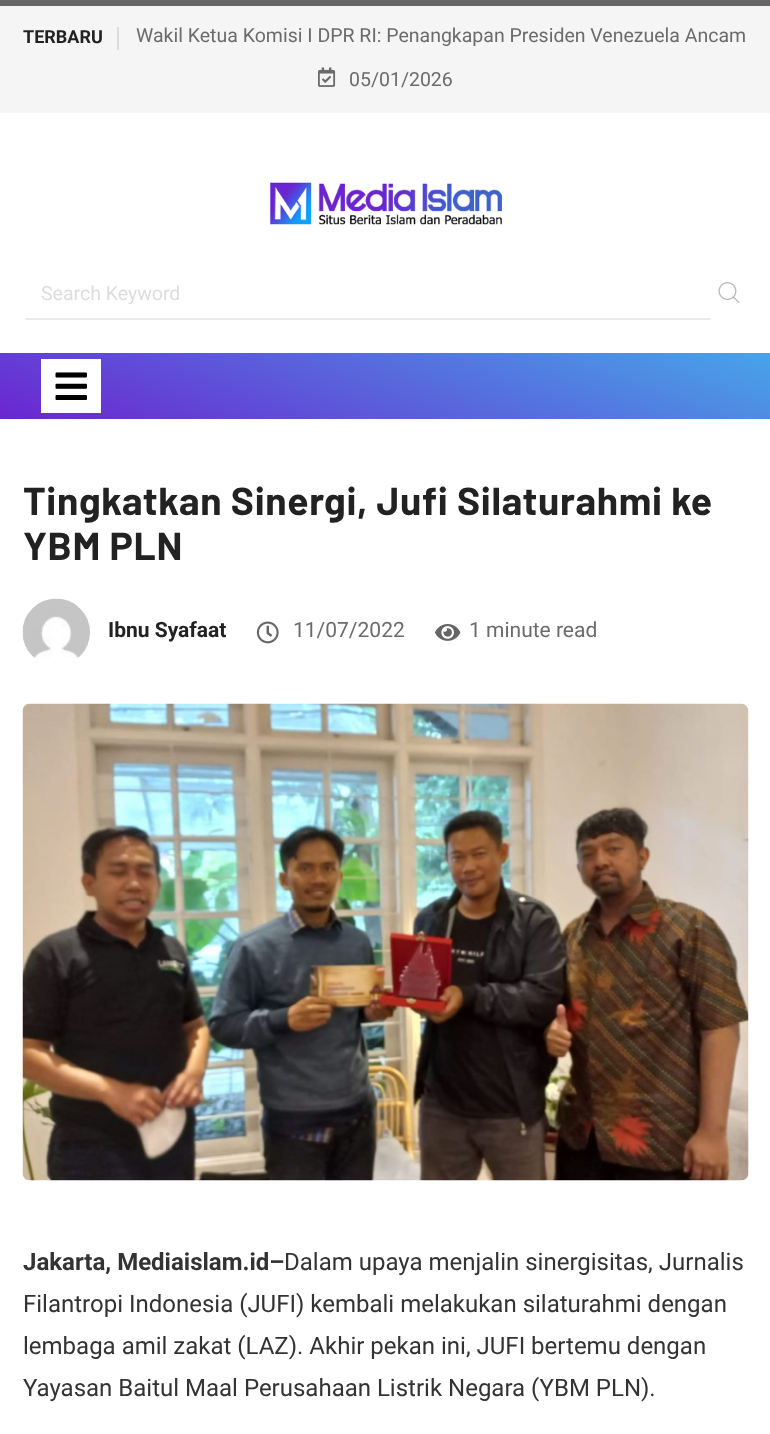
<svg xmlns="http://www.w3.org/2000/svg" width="770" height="1434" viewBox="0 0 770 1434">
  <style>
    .t1 { font: bold 18px Roboto; fill: #222; }
    .t2 { font: 19.5px Roboto; fill: #6b6b6b; }
    .t3 { font: 19.5px Roboto; fill: #ddd; }
    .t4 { font: bold 39px Barlow; letter-spacing: 0.7px; fill: #222; }
    .t5 { font: bold 21px Roboto; fill: #222; }
    .t6 { font: 21px Roboto; fill: #6b6b6b; }
    .t7 { font: bold 24px Roboto; fill: #333; }
    .t8 { font: 24px Roboto; fill: #333; }
  </style>
  <defs>
    <linearGradient id="g1" gradientUnits="userSpaceOnUse" x1="330" y1="539" x2="441" y2="232"><stop offset="0" stop-color="#6b25d0"/><stop offset="1" stop-color="#47a5e8"/></linearGradient>
  </defs>
  <rect width="100%" height="100%" fill="#fff"/>
  <rect x="0" y="0" width="770" height="6" fill="#676666"/>
  <rect x="0" y="6" width="770" height="107" fill="#f5f5f5"/>
  <rect x="117" y="27" width="2" height="23" fill="#dedbdb"/>
  <text x="23" y="43" class="t1">TERBARU</text>
  <text x="136" y="42" class="t2">Wakil Ketua Komisi I DPR RI: Penangkapan Presiden Venezuela Ancam</text>
  <image x="318" y="67" width="18" height="20" href="images/1.png"/>
  <text x="349" y="86" class="t2">05/01/2026</text>
  <image x="270" y="182" width="233" height="43" href="images/2.png"/>
  <rect x="26" y="318" width="684" height="2" fill="#eaeaea"/>
  <text x="41" y="300" class="t3">Search Keyword</text>
  <image x="718" y="282" width="22" height="21" href="images/3.png"/>
  <rect x="0" y="353" width="770" height="66" fill="url(#g1)"/>
  <rect x="41" y="359" width="60" height="54" fill="#fff"/>
  <image x="55" y="372" width="32" height="28" href="images/4.png"/>
  <text x="23" y="515" class="t4">Tingkatkan Sinergi, Jufi Silaturahmi ke</text>
  <text x="23" y="560" class="t4">YBM PLN</text>
  <image x="22" y="598" width="68" height="61" href="images/5.png"/>
  <text x="108" y="637" class="t5">Ibnu Syafaat</text>
  <image x="256" y="621" width="23" height="23" href="images/6.png"/>
  <text x="293" y="637" class="t6">11/07/2022</text>
  <image x="435" y="624" width="26" height="17" href="images/7.png"/>
  <text x="469" y="637" class="t6">1 minute read</text>
  <image x="22" y="703" width="727" height="478" href="images/8.png"/>
  <text x="23" y="1270" class="t7">Jakarta, Mediaislam.id–</text>
  <text x="284" y="1270" class="t8">Dalam upaya menjalin sinergisitas, Jurnalis</text>
  <text x="23" y="1312" class="t8">Filantropi Indonesia (JUFI) kembali melakukan silaturahmi dengan</text>
  <text x="23" y="1354" class="t8">lembaga amil zakat (LAZ). Akhir pekan ini, JUFI bertemu dengan</text>
  <text x="23" y="1396" class="t8">Yayasan Baitul Maal Perusahaan Listrik Negara (YBM PLN).</text>
</svg>
